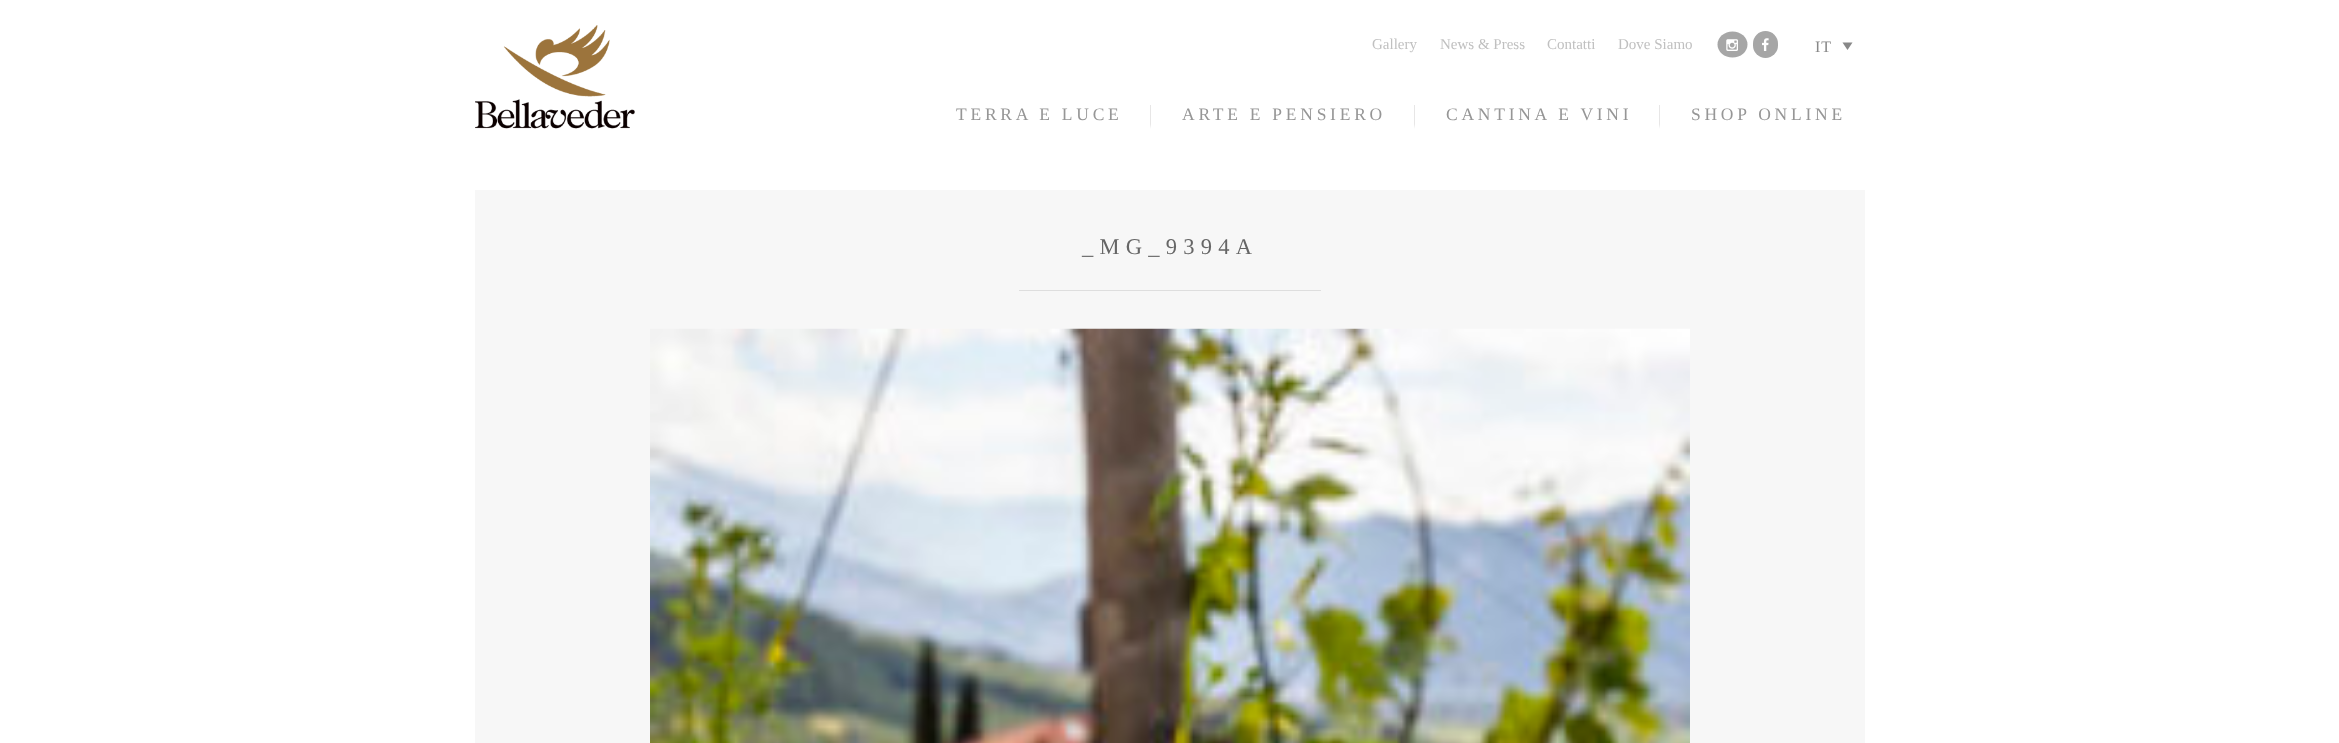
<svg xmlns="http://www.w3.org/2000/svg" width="2339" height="743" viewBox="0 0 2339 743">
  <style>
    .t1 { font: 15px Liberation Serif; fill: #c0c0c0; }
    .t2 { font: 16px Liberation Serif; letter-spacing: 1px; fill: #888; }
    .t3 { font: 17.5px Liberation Serif; letter-spacing: 3.75px; fill: #969696; }
    .t4 { font: 22.5px Liberation Serif; letter-spacing: 6.25px; fill: #666; }
  </style>
  <rect width="100%" height="100%" fill="#fff"/>
  <image x="475" y="25" width="160" height="104" href="images/1.png"/>
  <text x="1372" y="49" class="t1">Gallery</text>
  <text x="1440" y="49" class="t1">News &amp; Press</text>
  <text x="1547" y="49" class="t1">Contatti</text>
  <text x="1618" y="49" class="t1">Dove Siamo</text>
  <ellipse cx="1732.5" cy="44.5" rx="15" ry="13" fill="#a6a6a6"/>
  <rect x="1753" y="31" width="25" height="27" rx="12.5" fill="#a6a6a6"/>
  <image x="1726" y="39" width="12" height="12" href="images/2.png"/>
  <image x="1762" y="38" width="7" height="13" href="images/3.png"/>
  <text x="1815" y="52" class="t2">IT</text>
  <path d="M1842.5 42.5H1852.5L1847.5 50Z" fill="#888"/>
  <text x="956" y="120" class="t3">TERRA E LUCE</text>
  <text x="1182" y="120" class="t3">ARTE E PENSIERO</text>
  <path d="M1150 129V105H1151V124Z" fill="#e7e6e6"/>
  <text x="1446" y="120" class="t3">CANTINA E VINI</text>
  <path d="M1414 129V105H1415V124Z" fill="#e7e6e6"/>
  <text x="1691" y="120" class="t3">SHOP ONLINE</text>
  <path d="M1659 129V105H1660V124Z" fill="#e7e6e6"/>
  <rect x="475" y="190" width="1390" height="553" fill="#f7f7f7"/>
  <rect x="1019" y="290" width="302" height="1" fill="#dedede"/>
  <text x="1082" y="254" class="t4">_MG_9394A</text>
  <image x="650" y="328" width="1040" height="415" href="images/4.png"/>
</svg>
